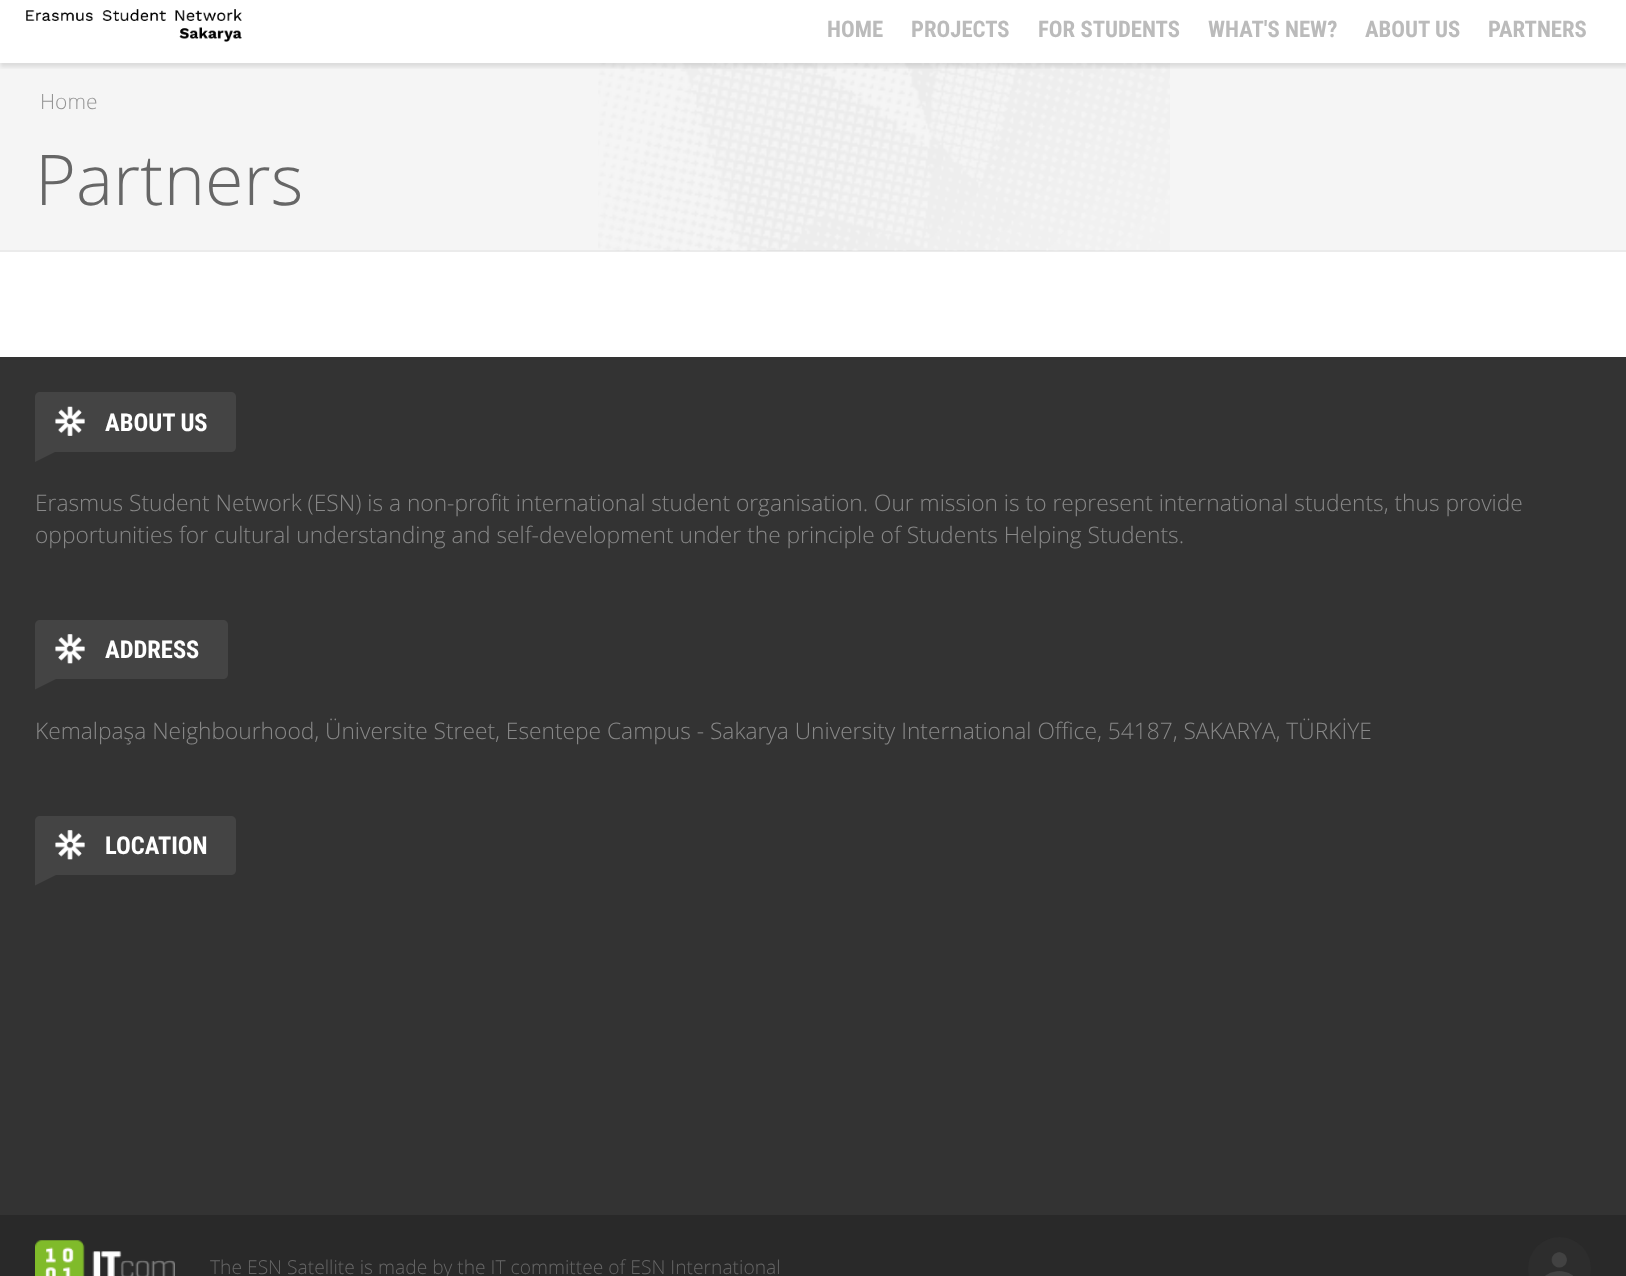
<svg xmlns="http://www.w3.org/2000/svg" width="1626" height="1276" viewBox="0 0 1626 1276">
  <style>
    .t1 { font: bold 22.75px Roboto Condensed; fill: #bbb; }
    .t2 { font: 300 21px Open Sans; fill: #939393; }
    .t3 { font: 300 70px Open Sans; fill: #666; }
    .t4 { font: bold 24.5px Roboto Condensed; fill: #fff; }
    .t5 { font: 300 22.75px 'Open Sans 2'; fill: #888; }
    .t6 { font: 300 19.25px Open Sans; fill: #666; }
  </style>
  <defs>
    <clipPath id="clip1"><rect x="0" y="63" width="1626" height="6"/></clipPath>
  </defs>
  <rect width="100%" height="100%" fill="#fff"/>
  <rect x="0" y="63" width="1626" height="189" fill="#f5f5f5"/>
  <image x="598" y="63" width="572" height="188" href="images/2.png"/>
  <g clip-path="url(#clip1)">
    <rect x="0" y="-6" width="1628" height="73" fill="#0000001a" filter="blur(2px)"/>
  </g>
  <image x="26" y="9" width="216" height="33" href="images/1.png"/>
  <text x="827" y="37" class="t1">HOME</text>
  <text x="911" y="37" class="t1">PROJECTS</text>
  <text x="1038" y="37" class="t1">FOR STUDENTS</text>
  <text x="1208" y="37" class="t1">WHAT'S NEW?</text>
  <text x="1365" y="37" class="t1">ABOUT US</text>
  <text x="1488" y="37" class="t1">PARTNERS</text>
  <rect x="0" y="250" width="1626" height="2" fill="#0000000a"/>
  <text x="40" y="109" class="t2">Home</text>
  <text x="35" y="205" class="t3">Partners</text>
  <rect x="0" y="357" width="1626" height="858" fill="#333"/>
  <path d="M40 392H231C234 392 236 394 236 397V447C236 450 234 452 231 452H35V397C35 394 37 392 40 392Z" fill="#444"/>
  <image x="55" y="406" width="30" height="30" href="images/3.png"/>
  <text x="105" y="431" class="t4">ABOUT US</text>
  <path d="M35 451.5H56L35 462Z" fill="#444"/>
  <text x="35" y="511" class="t5">Erasmus Student Network (ESN) is a non-profit international student organisation. Our mission is to represent international students, thus provide</text>
  <text x="35" y="543" class="t5">opportunities for cultural understanding and self-development under the principle of Students Helping Students.</text>
  <path d="M40 620H223C226 620 228 622 228 625V674C228 677 226 679 223 679H35V625C35 622 37 620 40 620Z" fill="#444"/>
  <image x="55" y="634" width="30" height="30" href="images/4.png"/>
  <text x="105" y="658" class="t4">ADDRESS</text>
  <path d="M35 679H56L35 689.5Z" fill="#444"/>
  <text x="35" y="739" class="t5">Kemalpaşa Neighbourhood, Üniversite Street, Esentepe Campus - Sakarya University International Office, 54187, SAKARYA, TÜRKİYE</text>
  <path d="M40 816H231C234 816 236 818 236 821V870C236 873 234 875 231 875H35V821C35 818 37 816 40 816Z" fill="#444"/>
  <image x="55" y="830" width="30" height="30" href="images/4.png"/>
  <text x="105" y="854" class="t4">LOCATION</text>
  <path d="M35 875H56L35 885.5Z" fill="#444"/>
  <rect x="0" y="1215" width="1626" height="61" fill="#292929"/>
  <image x="35" y="1240" width="140" height="36" href="images/5.png"/>
  <text x="210" y="1274" class="t6">The ESN Satellite is made by the IT committee of ESN International</text>
  <circle cx="1559.5" cy="1268.5" r="31.5" fill="#2d2d2d"/>
  <image x="1545" y="1252" width="28" height="24" href="images/6.png"/>
</svg>
